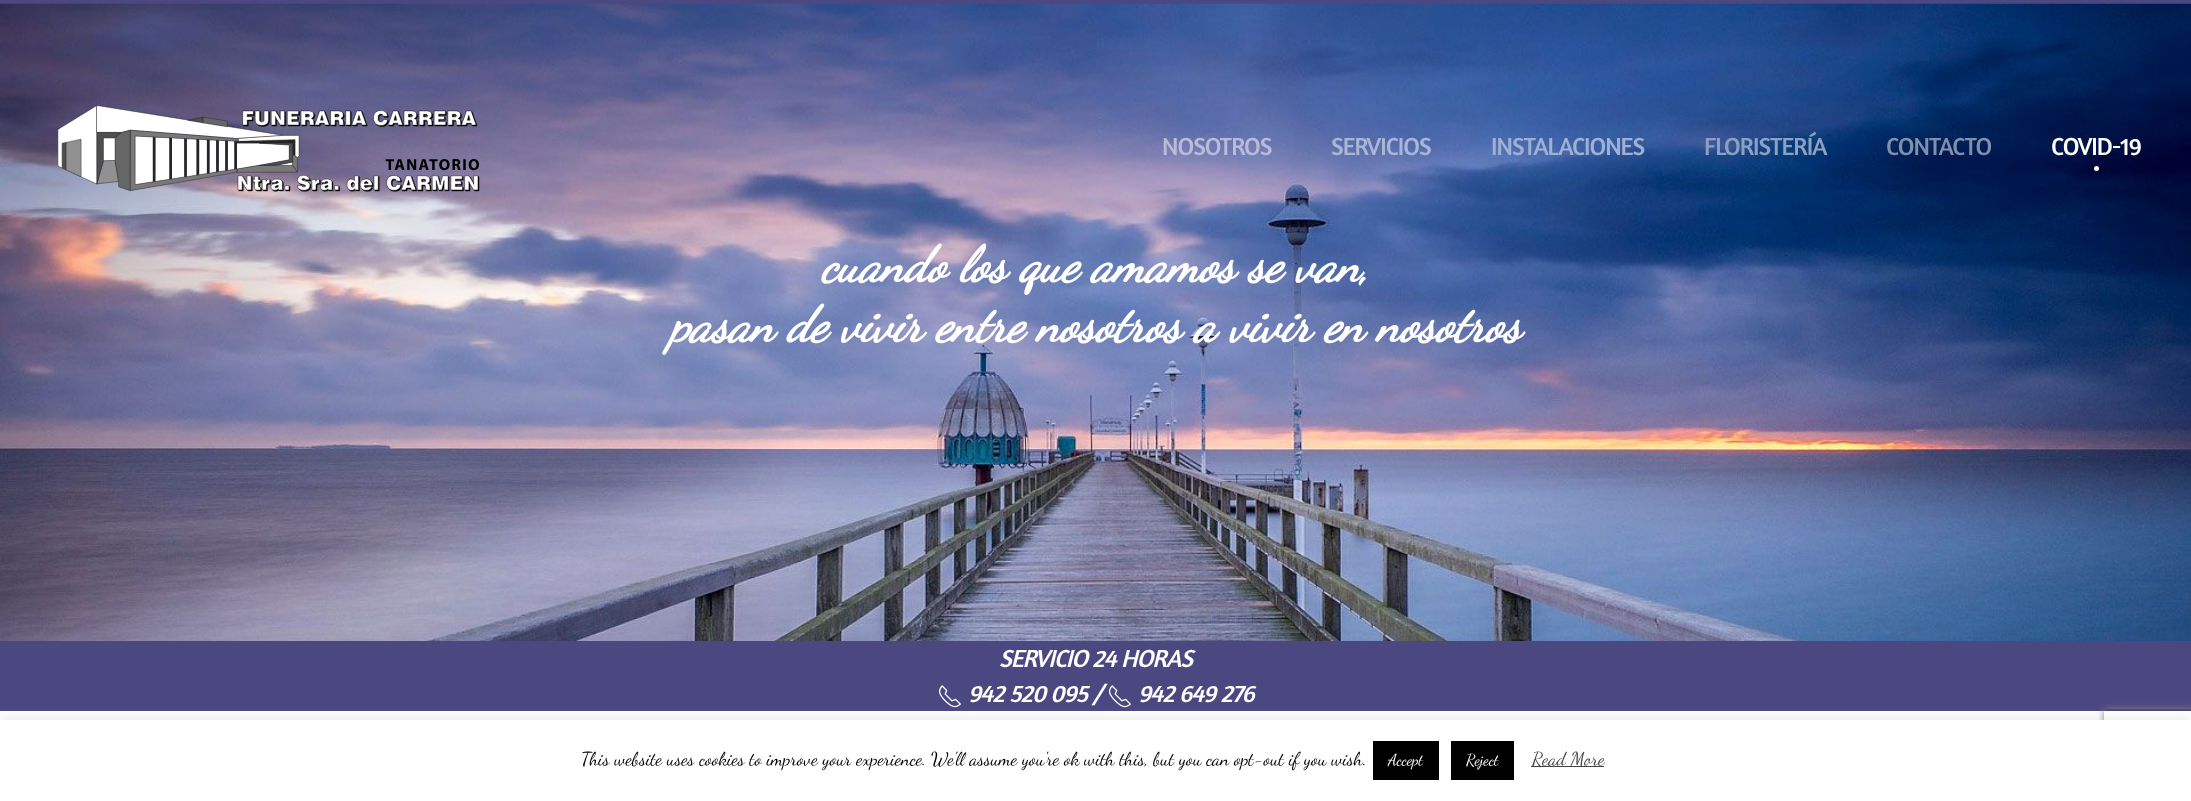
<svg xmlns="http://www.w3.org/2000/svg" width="2191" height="801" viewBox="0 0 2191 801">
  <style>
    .t1 { font: 25px Amaranth; letter-spacing: -1px; fill: #b7bcd8; }
    .t2 { font: 25px Amaranth; letter-spacing: -1px; fill: #abb6d6; }
    .t3 { font: 25px Amaranth; letter-spacing: -1px; fill: #9fb1d3; }
    .t4 { font: 25px Amaranth; letter-spacing: -1px; fill: #8ca1c1; }
    .t5 { font: 25px Amaranth; letter-spacing: -1px; fill: #808fab; }
    .t6 { font: 25px Amaranth; letter-spacing: -1px; fill: #fff; }
    .t7 { font: italic bold 50px Dancing Script; fill: #fff; }
    .t8 { font: italic 25px Amaranth; letter-spacing: -1px; fill: #fff; }
    .t9 { font: 18.75px Dancing Script; fill: #000; }
    .t10 { font: 16px Dancing Script; fill: #fff; }
    .t11 { font: 18.75px Dancing Script; fill: #444; }
  </style>
  <defs>
    <clipPath id="clip1"><path d="M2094 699H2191V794H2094ZM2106.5 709H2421.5C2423 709 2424 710 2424 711.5V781.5C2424 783 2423 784 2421.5 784H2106.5C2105 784 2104 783 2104 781.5V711.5C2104 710 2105 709 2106.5 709Z" clip-rule="evenodd"/></clipPath>
  </defs>
  <rect width="100%" height="100%" fill="#fff"/>
  <rect x="0" y="0" width="2191" height="4" fill="#4b4881"/>
  <image x="0" y="3" width="2191" height="638" href="images/2.png"/>
  <image x="57" y="105" width="423" height="87" href="images/1.png"/>
  <text x="1162" y="155" class="t1">NOSOTROS</text>
  <text x="1331" y="155" class="t2">SERVICIOS</text>
  <text x="1491" y="155" class="t3">INSTALACIONES</text>
  <text x="1704" y="155" class="t4">FLORISTERÍA</text>
  <text x="1886" y="155" class="t5">CONTACTO</text>
  <text x="2051" y="155" class="t6">COVID-19</text>
  <circle cx="2096.5" cy="168.5" r="2.5" fill="#fff"/>
  <text x="821" y="281" class="t7">cuando los que amamos se van,</text>
  <text x="670" y="341" class="t7">pasan de vivir entre nosotros a vivir en nosotros</text>
  <rect x="0" y="641" width="2191" height="70" fill="#4b4881"/>
  <text x="999" y="667" class="t8">SERVICIO 24 HORAS</text>
  <image x="939" y="685" width="22" height="23" href="images/3.png"/>
  <text x="968" y="702" class="t8">942 520 095 /</text>
  <image x="1109" y="685" width="22" height="23" href="images/3.png"/>
  <text x="1138" y="702" class="t8">942 649 276</text>
  <rect x="0" y="719" width="2191" height="81" fill="#acabab4d" filter="blur(6px)"/>
  <g clip-path="url(#clip1)">
    <rect x="2104" y="709" width="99" height="75" rx="2.5" fill="#808080" filter="blur(3px)"/>
  </g>
  <rect x="0" y="720" width="2191" height="81" fill="#fff"/>
  <text x="581" y="765" class="t9">This website uses cookies to improve your experience. We'll assume you're ok with this, but you can opt-out if you wish.</text>
  <rect x="1373" y="741" width="66" height="39" fill="#000"/>
  <text x="1388" y="765" class="t10">Accept</text>
  <rect x="1451" y="741" width="63" height="39" fill="#000"/>
  <text x="1466" y="765" class="t10">Reject</text>
  <rect x="1531" y="766" width="73" height="1" fill="#444"/>
  <text x="1532" y="765" class="t11">Read More</text>
</svg>
